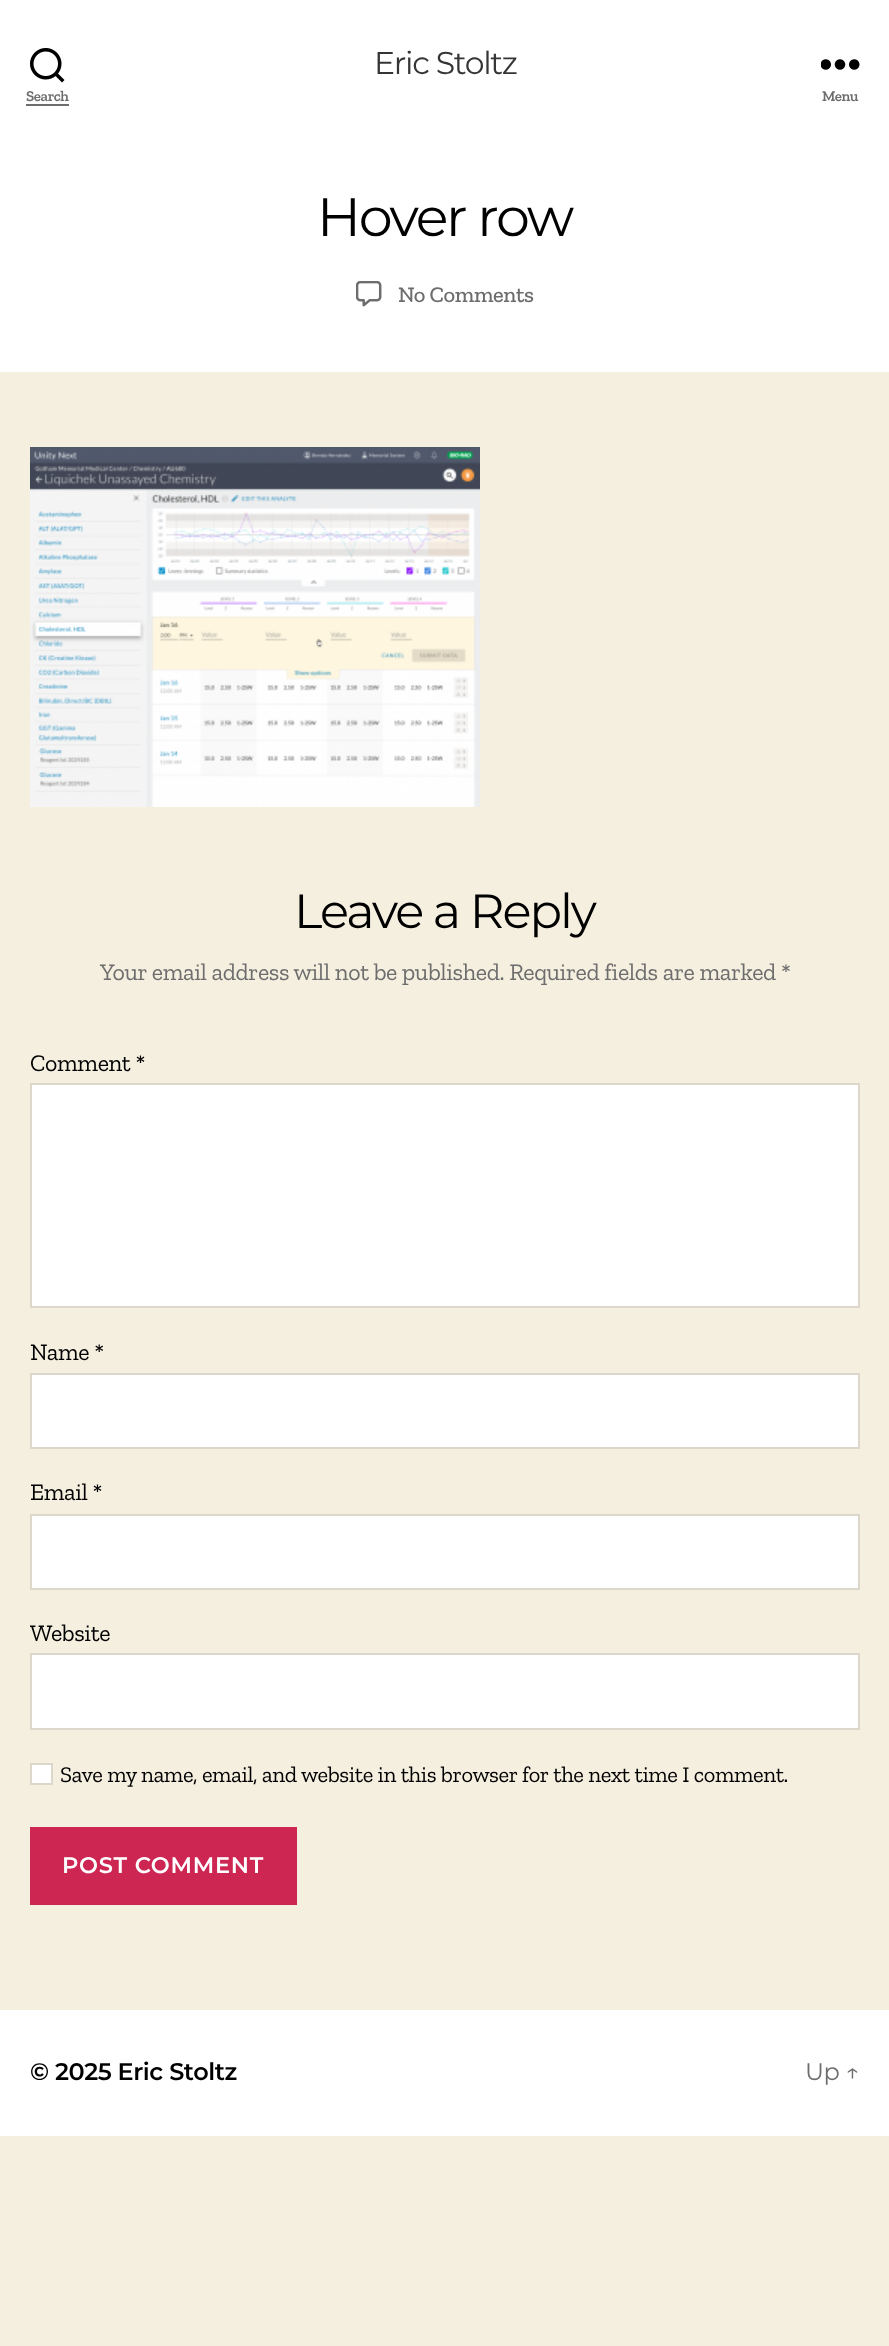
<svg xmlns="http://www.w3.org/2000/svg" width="889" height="2346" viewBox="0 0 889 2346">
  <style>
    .t1 { font: 31.5px Montserrat; letter-spacing: -1.25px; fill: #353535; }
    .t2 { font: 600 15px Zilla Slab; letter-spacing: -0.4px; fill: #6d6d6d; }
    .t3 { font: 54px Montserrat; letter-spacing: -2.25px; fill: #000; }
    .t4 { font: 500 22.5px Zilla Slab; letter-spacing: -0.4px; fill: #6d6d6d; }
    .t5 { font: 48px Montserrat; letter-spacing: -2px; fill: #000; }
    .t6 { font: 24px Zilla Slab; letter-spacing: -0.4px; fill: #6d6d6d; }
    .t7 { font: 24px Zilla Slab; letter-spacing: -0.4px; fill: #000; }
    .t8 { font: 22.5px Zilla Slab; letter-spacing: -0.4px; fill: #000; }
    .t9 { font: 600 22.5px Montserrat; letter-spacing: 0.75px; fill: #fff; }
    .t10 { font: 600 24px Montserrat; letter-spacing: -0.4px; fill: #000; }
    .t11 { font: 24px Montserrat; letter-spacing: -0.4px; fill: #6d6d6d; }
  </style>
  <rect width="100%" height="100%" fill="#f5efe0"/>
  <rect x="0" y="0" width="889" height="372" fill="#fff"/>
  <text x="374" y="74" class="t1">Eric Stoltz</text>
  <image x="30" y="48" width="35" height="35" href="images/1.png"/>
  <text x="26" y="101" class="t2">Search</text>
  <rect x="26" y="104" width="43" height="2" fill="#6d6d6d"/>
  <image x="821" y="59" width="39" height="11" href="images/2.png"/>
  <text x="822" y="101" class="t2">Menu</text>
  <text x="317" y="236" class="t3">Hover row</text>
  <image x="356" y="281" width="26" height="26" href="images/3.png"/>
  <text x="398" y="302" class="t4">No Comments</text>
  <image x="30" y="447" width="450" height="360" href="images/4.png"/>
  <text x="294" y="928" class="t5">Leave a Reply</text>
  <text x="100" y="980" class="t6">Your email address will not be published. Required fields are marked *</text>
  <text x="30" y="1071" class="t7">Comment *</text>
  <rect x="31" y="1084" width="828" height="223" fill="#fff" stroke="#dcd7ca" stroke-width="2"/>
  <text x="30" y="1360" class="t7">Name *</text>
  <rect x="31" y="1374" width="828" height="74" fill="#fff" stroke="#dcd7ca" stroke-width="2"/>
  <text x="30" y="1500" class="t7">Email *</text>
  <rect x="31" y="1515" width="828" height="74" fill="#fff" stroke="#dcd7ca" stroke-width="2"/>
  <text x="30" y="1641" class="t7">Website</text>
  <rect x="31" y="1654" width="828" height="75" fill="#fff" stroke="#dcd7ca" stroke-width="2"/>
  <rect x="31" y="1764" width="21" height="20" fill="#fff" stroke="#dcd7ca" stroke-width="2"/>
  <text x="60" y="1782" class="t8">Save my name, email, and website in this browser for the next time I comment.</text>
  <rect x="30" y="1827" width="267" height="78" fill="#cd2653"/>
  <text x="62" y="1873" class="t9">POST COMMENT</text>
  <rect x="0" y="2010" width="889" height="126" fill="#fff"/>
  <text x="30" y="2080" class="t10">© 2025 Eric Stoltz</text>
  <text x="805" y="2080" class="t11">Up ↑</text>
</svg>
